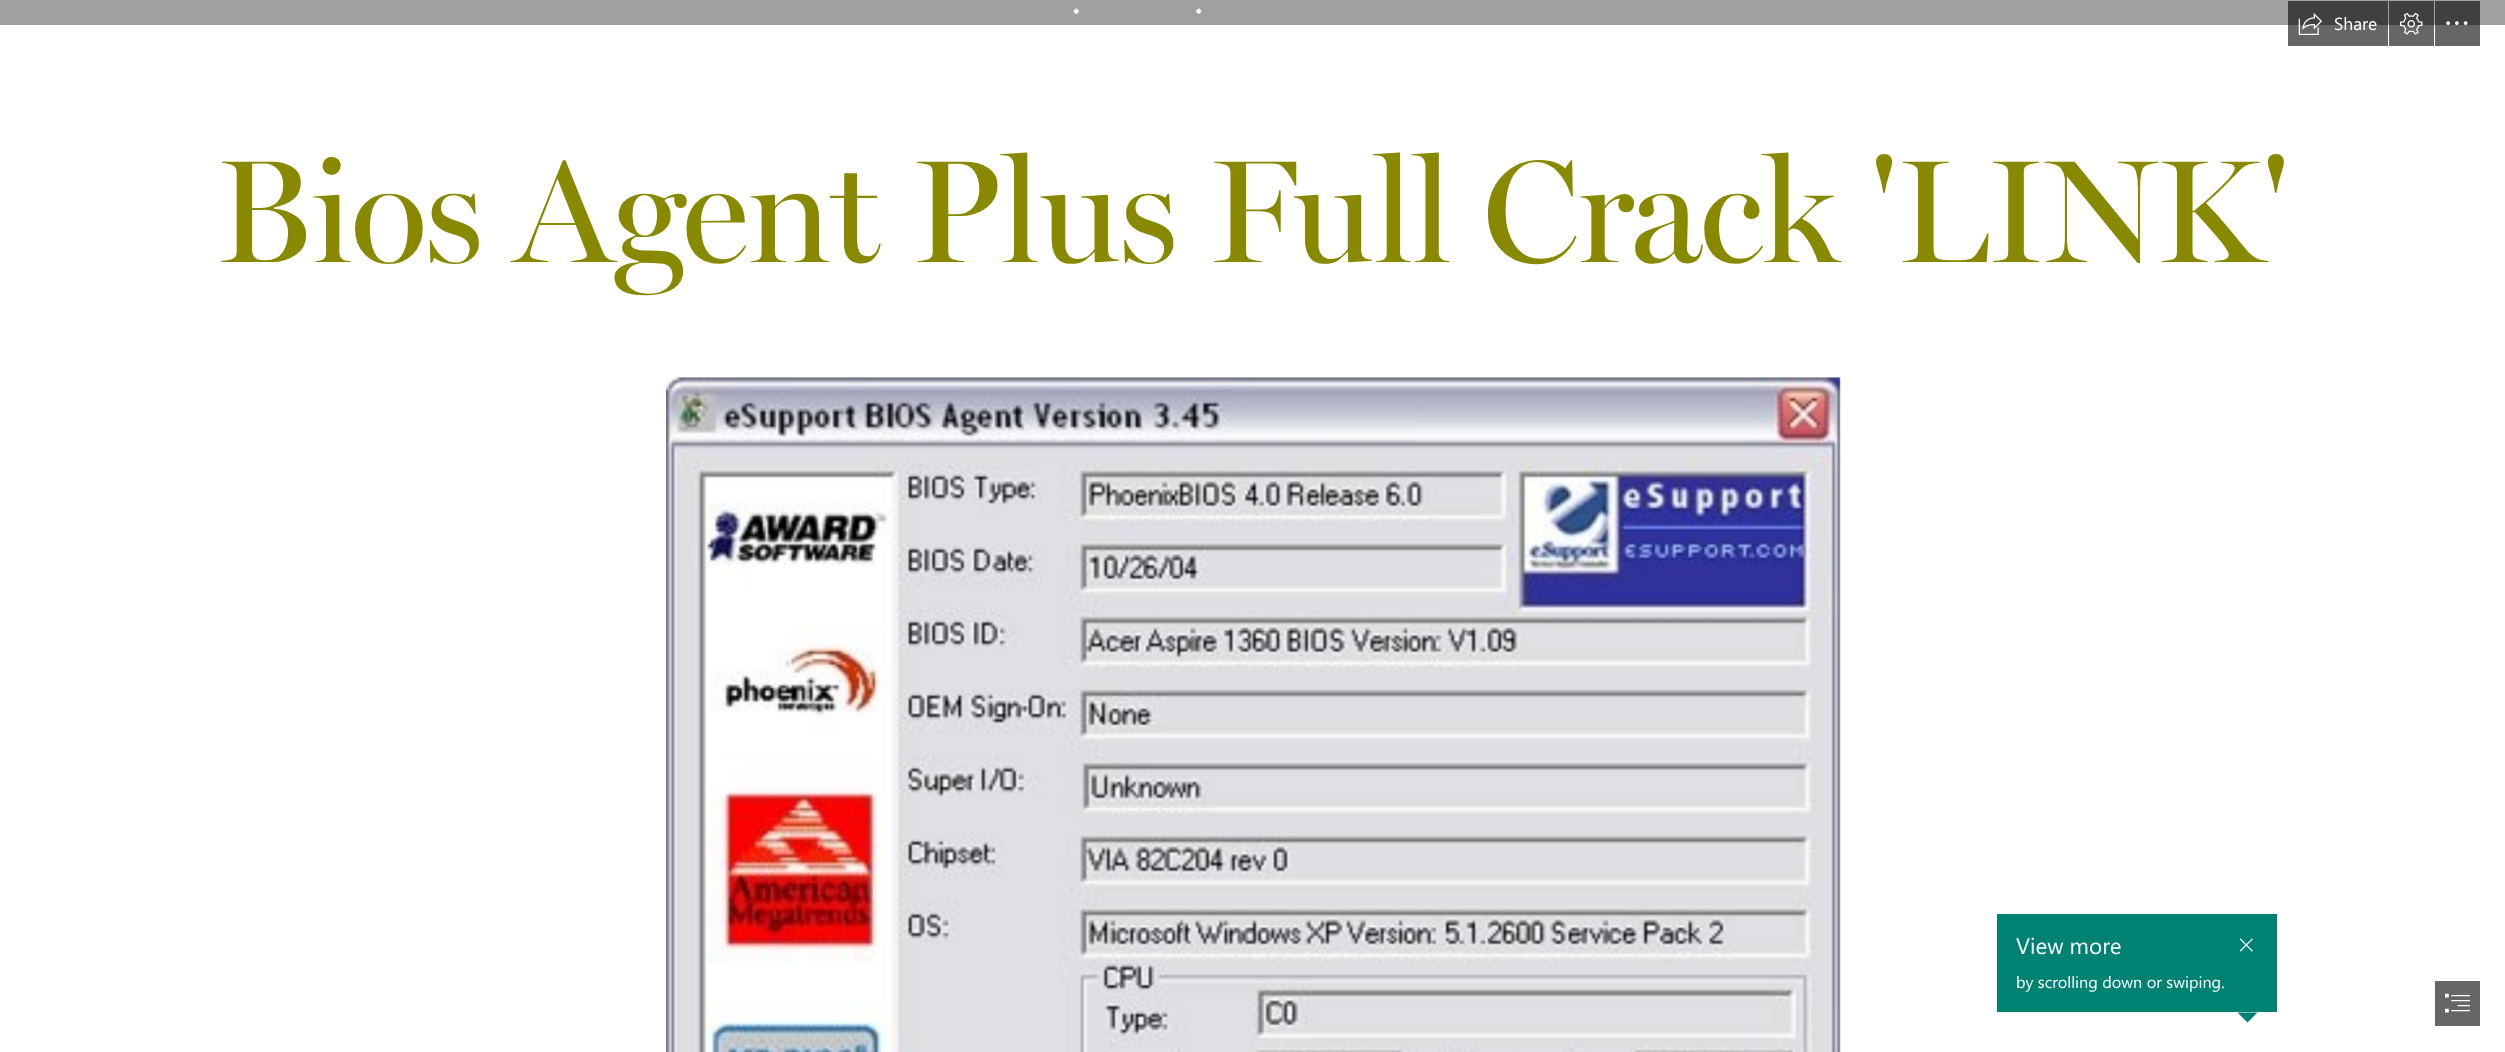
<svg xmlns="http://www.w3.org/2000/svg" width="2505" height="1052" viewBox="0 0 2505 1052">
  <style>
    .t1 { font: 17.5px Segoe UI; fill: #fff; }
    .t2 { font: 146.75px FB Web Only; letter-spacing: -2.2px; fill: #898900; }
    .t3 { font: 22.5px Segoe UI; fill: #fff; }
    .t4 { font: 16.25px Segoe UI; fill: #fff; }
  </style>
  <rect width="100%" height="100%" fill="#fff"/>
  <rect x="0" y="0" width="2505" height="25" fill="#a0a0a0"/>
  <rect x="2288" y="1" width="100" height="24" fill="#404040"/>
  <rect x="2288" y="25" width="100" height="21" fill="#666"/>
  <image x="2298" y="13" width="24" height="22" href="images/1.png"/>
  <text x="2334" y="30" class="t1">Share</text>
  <rect x="2389" y="1" width="45" height="24" fill="#404040"/>
  <rect x="2389" y="25" width="45" height="21" fill="#666"/>
  <image x="2400" y="12" width="23" height="23" href="images/2.png"/>
  <rect x="2435" y="1" width="45" height="24" fill="#404040"/>
  <image x="2446" y="21" width="22" height="4" href="images/3.png"/>
  <image x="1073" y="8" width="129" height="6" href="images/4.png"/>
  <rect x="2435" y="25" width="45" height="21" fill="#666"/>
  <text x="215" y="262" class="t2">Bios Agent Plus Full Crack 'LINK'</text>
  <image x="666" y="377" width="1175" height="675" href="images/5.png"/>
  <rect x="1997" y="914" width="280" height="98" fill="#008272"/>
  <text x="2016" y="954" class="t3">View more</text>
  <text x="2016" y="988" class="t4">by scrolling down or swiping.</text>
  <image x="2239" y="938" width="14" height="14" href="images/6.png"/>
  <path d="M2237.5 1012.5H2257.5L2247.5 1022.5Z" fill="#008272"/>
  <rect x="2435" y="981" width="45" height="45" fill="#666"/>
  <image x="2445" y="993" width="25" height="20" href="images/7.png"/>
</svg>
